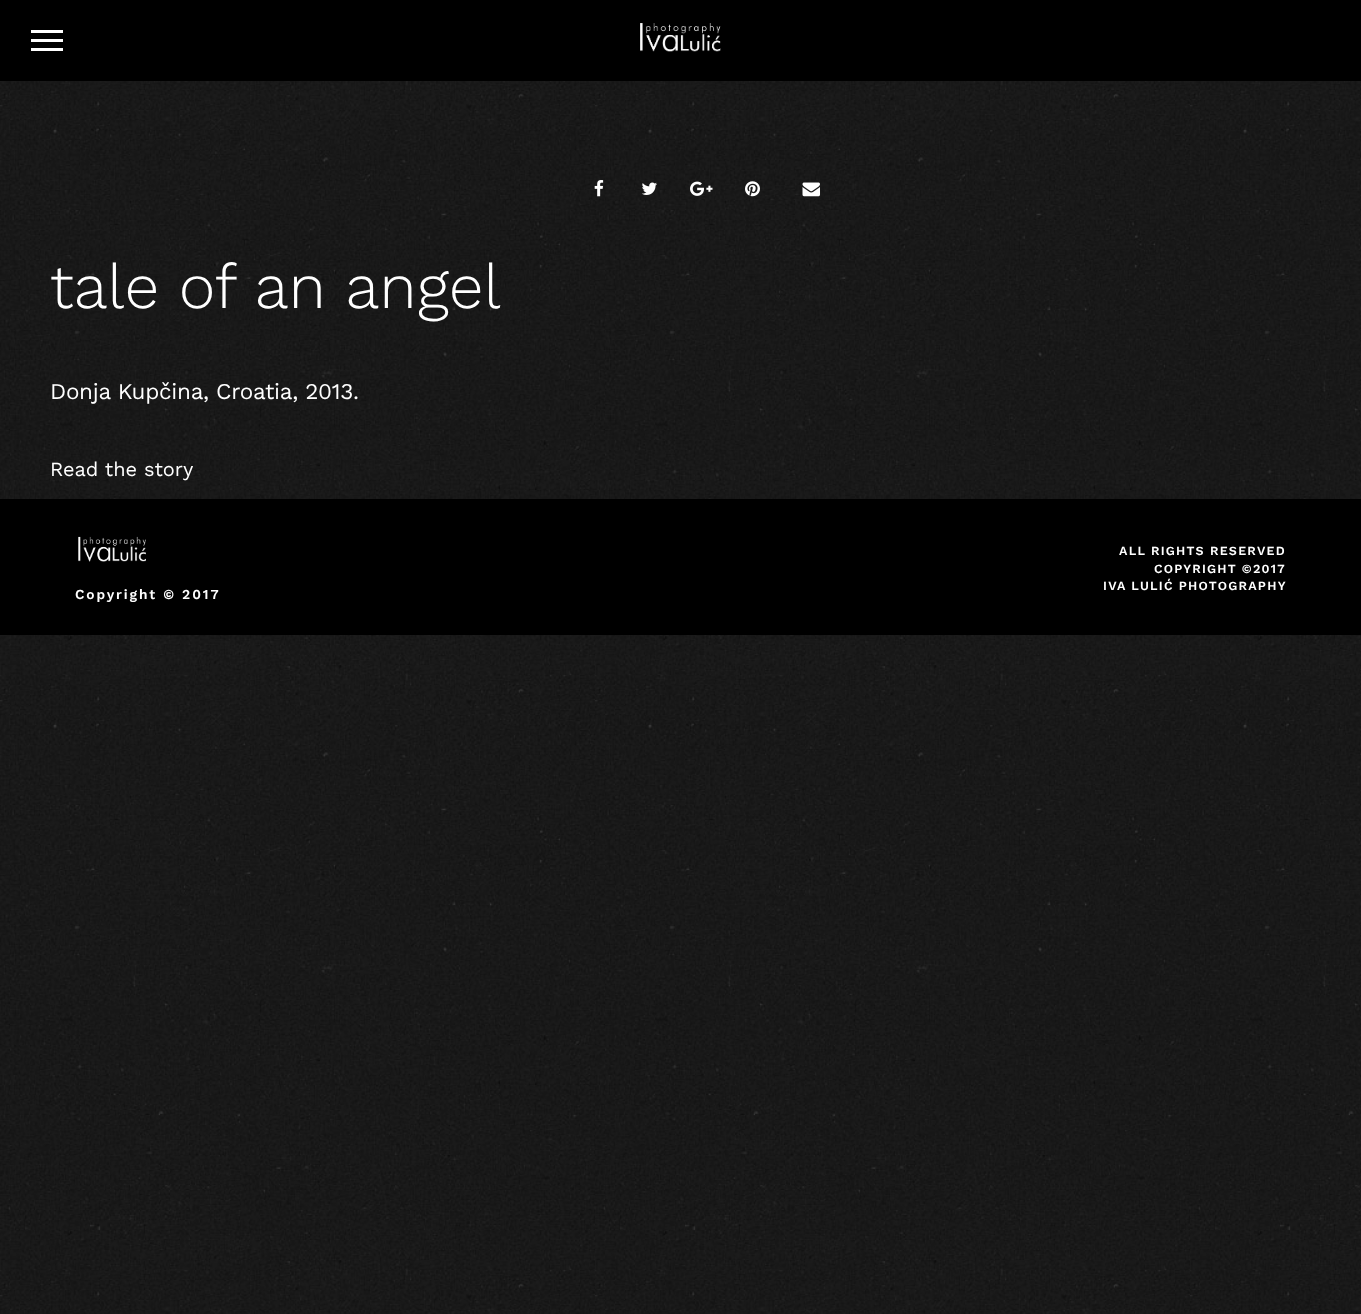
<svg xmlns="http://www.w3.org/2000/svg" width="1361" height="1314" viewBox="0 0 1361 1314">
  <style>
    .t1 { font: 300 62.5px Work Sans; fill: #fff; }
    .t2 { font: 22.5px Work Sans; letter-spacing: -0.3px; fill: #fff; }
    .t3 { font: 20px Work Sans; fill: #fff; }
    .t4 { font: 600 12.5px Work Sans; letter-spacing: 1.25px; fill: #fff; }
    .t5 { font: 600 13.75px Work Sans; letter-spacing: 1.9px; fill: #fff; }
  </style>
  <rect width="100%" height="100%" fill="#fff"/>
  <image x="0" y="81" width="1361" height="1233" href="images/1.png"/>
  <rect x="0" y="0" width="1361" height="81" fill="#000"/>
  <image x="640" y="23" width="81" height="29" href="images/2.png"/>
  <rect x="31" y="39" width="32" height="3" fill="#fff"/>
  <rect x="31" y="30" width="32" height="3" fill="#fff"/>
  <rect x="31" y="48" width="32" height="3" fill="#fff"/>
  <image x="594" y="180" width="10" height="17" href="images/3.png"/>
  <image x="641" y="182" width="16" height="13" href="images/4.png"/>
  <image x="690" y="181" width="23" height="15" href="images/5.png"/>
  <image x="745" y="181" width="15" height="16" href="images/6.png"/>
  <image x="802" y="182" width="18" height="15" href="images/7.png"/>
  <text x="50" y="308" class="t1">tale of an angel</text>
  <text x="50" y="399" class="t2">Donja Kupčina, Croatia, 2013.</text>
  <text x="50" y="476" class="t3">Read the story</text>
  <rect x="0" y="499" width="1361" height="136" fill="#000"/>
  <image x="78" y="536" width="68" height="26" href="images/8.png"/>
  <text x="1119" y="555" class="t4">ALL RIGHTS RESERVED</text>
  <text x="1154" y="573" class="t4">COPYRIGHT ©2017</text>
  <text x="1103" y="590" class="t4">IVA LULIĆ PHOTOGRAPHY</text>
  <text x="75" y="599" class="t5">Copyright © 2017</text>
</svg>
